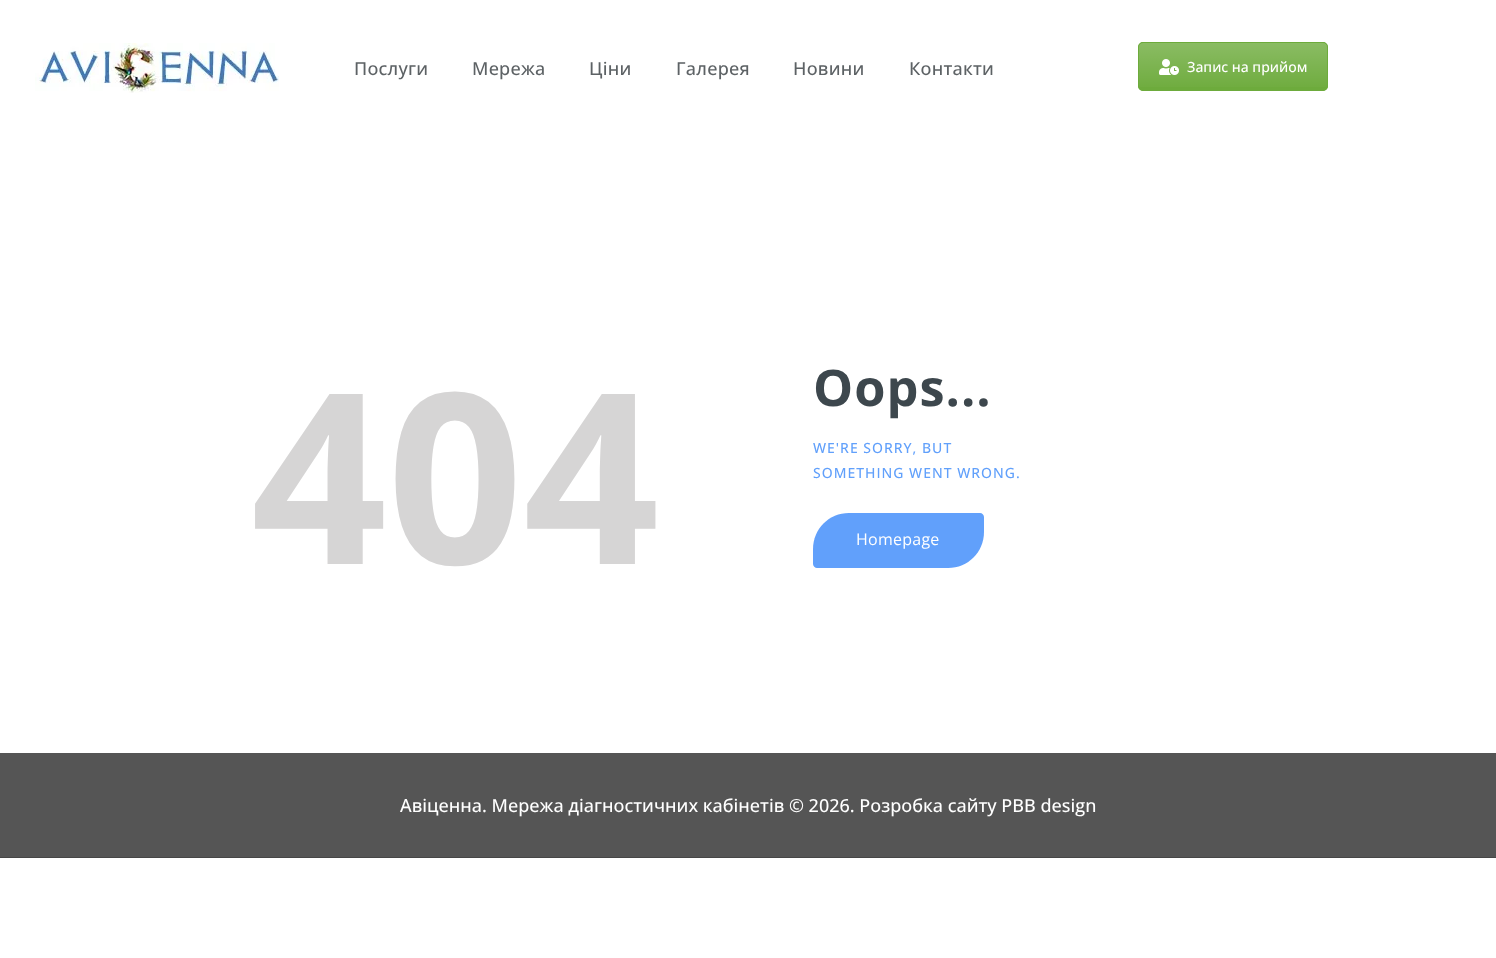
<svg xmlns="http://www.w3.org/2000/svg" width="1496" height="958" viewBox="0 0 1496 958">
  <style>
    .t1 { font: 500 18px Open Sans; letter-spacing: 0.25px; fill: #5d6265; }
    .t2 { font: 500 14px Open Sans; fill: #fff; }
    .t3 { font: bold 238px Open Sans; fill: #d6d5d5; }
    .t4 { font: bold 50.5px Open Sans; letter-spacing: 1px; fill: #3d474d; }
    .t5 { font: 500 14px Open Sans; letter-spacing: 1px; fill: #61a0fb; }
    .t6 { font: 16px Open Sans; letter-spacing: 0.25px; fill: #fff; }
    .t7 { font: 500 18px Open Sans; fill: #fff; }
  </style>
  <defs>
    <clipPath id="clip1"><rect x="1138" y="42" width="190" height="49" rx="5"/></clipPath>
    <linearGradient id="g1" gradientUnits="userSpaceOnUse" x1="1233" y1="43" x2="1233" y2="90"><stop offset="0" stop-color="#fff" stop-opacity="0.2"/><stop offset="1" stop-color="#fff" stop-opacity="0.01"/></linearGradient>
  </defs>
  <rect width="100%" height="100%" fill="#fff"/>
  <image x="35" y="43" width="244" height="50" href="images/1.png"/>
  <text x="354" y="75" class="t1">Послуги</text>
  <text x="472" y="75" class="t1">Мережа</text>
  <text x="589" y="75" class="t1">Ціни</text>
  <text x="676" y="75" class="t1">Галерея</text>
  <text x="793" y="75" class="t1">Новини</text>
  <text x="909" y="75" class="t1">Контакти</text>
  <rect x="1138" y="42" width="190" height="49" rx="5" fill="#6dab3c"/>
  <g clip-path="url(#clip1)">
    <rect x="1138" y="43" width="190" height="44" fill="url(#g1)"/>
  </g>
  <rect x="1138.5" y="42.5" width="189" height="48" rx="4.5" fill="none" stroke="#6dab3c"/>
  <image x="1159" y="59" width="20" height="16" href="images/2.png"/>
  <text x="1187" y="72" class="t2">Запис на прийом</text>
  <text x="251" y="564" class="t3">404</text>
  <text x="813" y="406" class="t4">Oops...</text>
  <text x="813" y="453" class="t5">WE'RE SORRY, BUT</text>
  <text x="813" y="478" class="t5">SOMETHING WENT WRONG.</text>
  <path d="M849 513H980C982 513 984 515 984 517V532C984 552 968 568 948 568H817C815 568 813 566 813 564V549C813 529 829 513 849 513Z" fill="#61a0fb"/>
  <text x="856" y="545" class="t6">Homepage</text>
  <rect x="0" y="753" width="1496" height="104" fill="#555"/>
  <rect x="0" y="857" width="1496" height="1" fill="#464646"/>
  <text x="400" y="812" class="t7">Авіценна. Мережа діагностичних кабінетів © 2026. Розробка сайту PBB design</text>
</svg>
